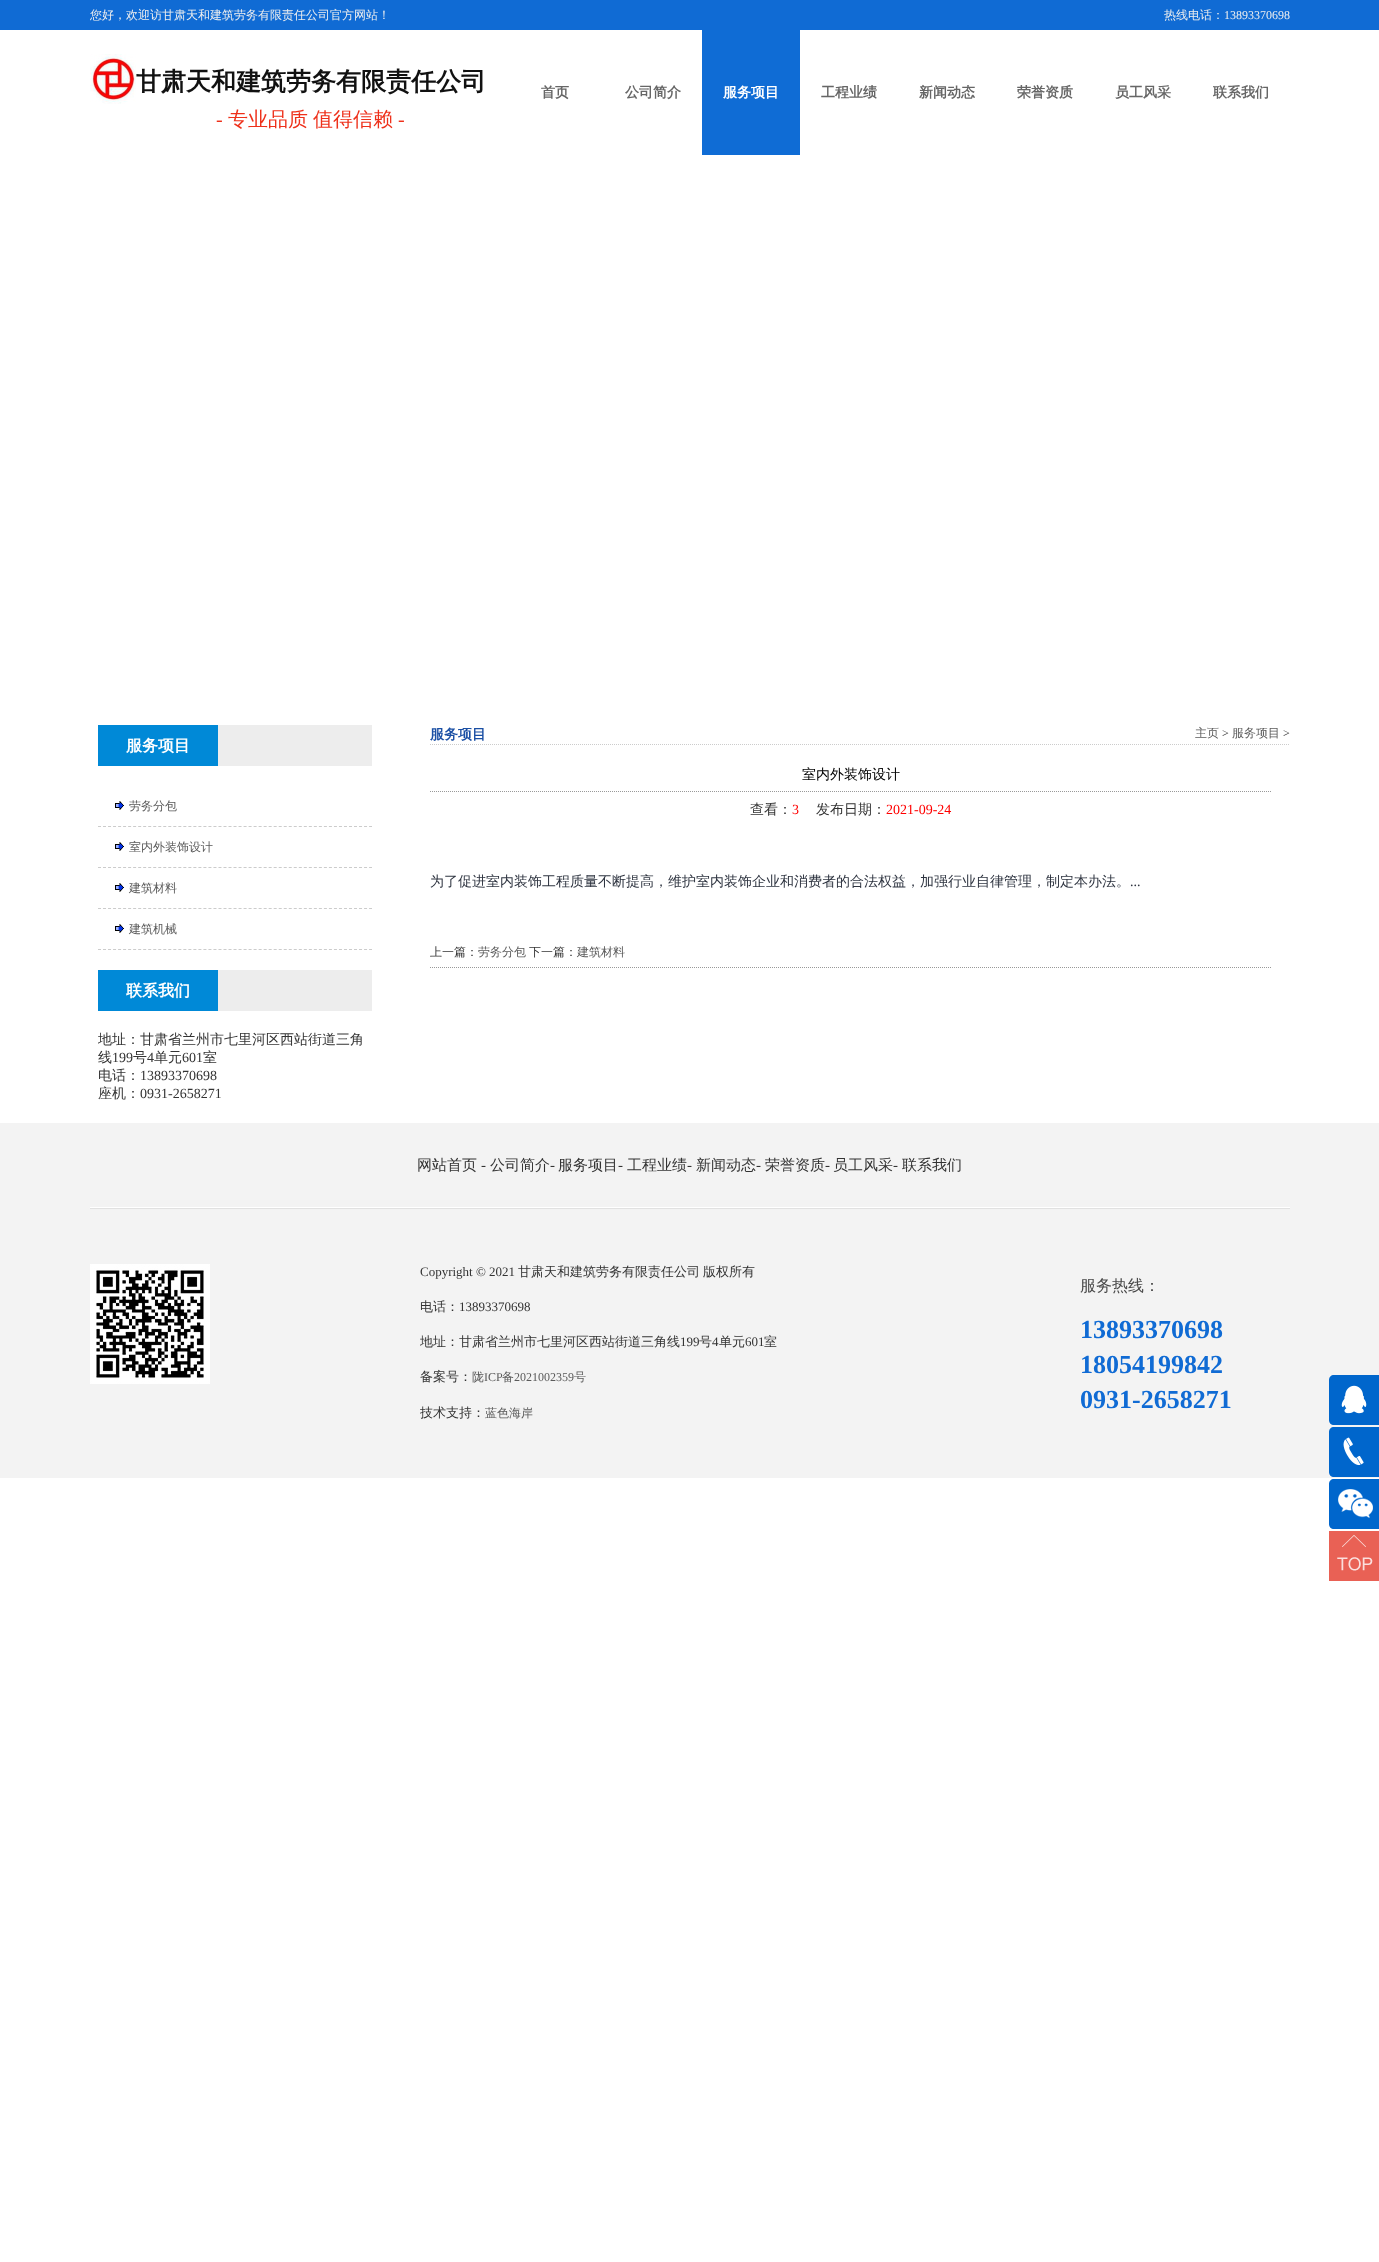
<svg xmlns="http://www.w3.org/2000/svg" width="1379" height="2262" viewBox="0 0 1379 2262">
  <style>
    .t1 { font: 500 12px WenQuanYi Zen Hei; fill: #efefef; }
    .t2 { font: 12px Liberation Serif; fill: #efefef; }
    .t3 { font: bold 25px WenQuanYi Zen Hei; fill: #111; }
    .t4 { font: 20px Liberation Serif; fill: #ee301a; }
    .t5 { font: 500 20px WenQuanYi Zen Hei; fill: #ee301a; }
    .t6 { font: bold 14px WenQuanYi Zen Hei; fill: #666; }
    .t7 { font: bold 14px WenQuanYi Zen Hei; fill: #fff; }
    .t8 { font: bold 16px WenQuanYi Zen Hei; fill: #fff; }
    .t9 { font: 500 12px WenQuanYi Zen Hei; fill: #5a5a5a; }
    .t10 { font: 500 14px WenQuanYi Zen Hei; fill: #333; }
    .t11 { font: 14px Liberation Serif; fill: #333; }
    .t12 { font: bold 14px WenQuanYi Zen Hei; fill: #1a4fa4; }
    .t13 { font: 12px Liberation Serif; fill: #333; }
    .t14 { font: 500 14px WenQuanYi Zen Hei; fill: #000; }
    .t15 { font: 14px Liberation Serif; fill: #f00; }
    .t16 { font: 500 14px WenQuanYi Zen Hei; fill: #2e3440; }
    .t17 { font: 14px Liberation Serif; fill: #2e3440; }
    .t18 { font: 500 12px WenQuanYi Zen Hei; fill: #333; }
    .t19 { font: 500 15px WenQuanYi Zen Hei; fill: #333; }
    .t20 { font: 15px Liberation Serif; fill: #333; }
    .t21 { font: 13px Liberation Serif; fill: #333; }
    .t22 { font: 500 13px WenQuanYi Zen Hei; fill: #333; }
    .t23 { font: 12px Liberation Serif; fill: #5a5a5a; }
    .t24 { font: 500 16px WenQuanYi Zen Hei; fill: #494949; }
    .t25 { font: bold 26px Liberation Serif; fill: #106bd4; }
  </style>
  <rect width="100%" height="100%" fill="#fff"/>
  <rect x="0" y="0" width="1379" height="30" fill="#106bd4"/>
  <text x="90" y="19" class="t1">您好，欢迎访甘肃天和建筑劳务有限责任公司官方网站！</text>
  <text x="1164" y="19" class="t1">热线电话：</text>
  <text x="1224" y="19" class="t2">13893370698</text>
  <image x="90" y="54" width="46" height="50" href="images/1.png"/>
  <text x="136" y="90" class="t3">甘肃天和建筑劳务有限责任公司</text>
  <text x="216" y="126" class="t4">-</text>
  <text x="228" y="126" class="t5">专业品质</text>
  <text x="313" y="126" class="t5">值得信赖</text>
  <text x="398" y="126" class="t4">-</text>
  <text x="541" y="97" class="t6">首页</text>
  <text x="625" y="97" class="t6">公司简介</text>
  <rect x="702" y="30" width="98" height="125" fill="#0f6cd5"/>
  <text x="723" y="97" class="t7">服务项目</text>
  <text x="821" y="97" class="t6">工程业绩</text>
  <text x="919" y="97" class="t6">新闻动态</text>
  <text x="1017" y="97" class="t6">荣誉资质</text>
  <text x="1115" y="97" class="t6">员工风采</text>
  <text x="1213" y="97" class="t6">联系我们</text>
  <rect x="218" y="725" width="154" height="41" fill="#ededed"/>
  <rect x="98" y="725" width="120" height="41" fill="#0089d7"/>
  <text x="126" y="751" class="t8">服务项目</text>
  <path d="M98 826.5H372" fill="none" stroke="#ccc" stroke-dasharray="3 2.02"/>
  <image x="115" y="801" width="9" height="9" href="images/2.png"/>
  <text x="129" y="810" class="t9">劳务分包</text>
  <path d="M98 867.5H372" fill="none" stroke="#ccc" stroke-dasharray="3 2.02"/>
  <image x="115" y="842" width="9" height="9" href="images/2.png"/>
  <text x="129" y="851" class="t9">室内外装饰设计</text>
  <path d="M98 908.5H372" fill="none" stroke="#ccc" stroke-dasharray="3 2.02"/>
  <image x="115" y="883" width="9" height="9" href="images/2.png"/>
  <text x="129" y="892" class="t9">建筑材料</text>
  <path d="M98 949.5H372" fill="none" stroke="#ccc" stroke-dasharray="3 2.02"/>
  <image x="115" y="924" width="9" height="9" href="images/2.png"/>
  <text x="129" y="933" class="t9">建筑机械</text>
  <rect x="218" y="970" width="154" height="41" fill="#ededed"/>
  <rect x="98" y="970" width="120" height="41" fill="#0089d7"/>
  <text x="126" y="996" class="t8">联系我们</text>
  <text x="98" y="1044" class="t10">地址：甘肃省兰州市七里河区西站街道三角</text>
  <text x="98" y="1062" class="t10">线</text>
  <text x="112" y="1062" class="t11">199</text>
  <text x="133" y="1062" class="t10">号</text>
  <text x="147" y="1062" class="t11">4</text>
  <text x="154" y="1062" class="t10">单元</text>
  <text x="182" y="1062" class="t11">601</text>
  <text x="203" y="1062" class="t10">室</text>
  <text x="98" y="1080" class="t10">电话：</text>
  <text x="140" y="1080" class="t11">13893370698</text>
  <text x="98" y="1098" class="t10">座机：</text>
  <text x="140" y="1098" class="t11">0931-2658271</text>
  <path d="M430 744.5H1290" fill="none" stroke="#ccc" stroke-dasharray="1 1"/>
  <text x="430" y="739" class="t12">服务项目</text>
  <text x="1195" y="737" class="t9">主页</text>
  <text x="1222" y="737" class="t13">&gt;</text>
  <text x="1232" y="737" class="t9">服务项目</text>
  <text x="1283" y="737" class="t13">&gt;</text>
  <path d="M430 791.5H1272" fill="none" stroke="#999" stroke-dasharray="1 1"/>
  <text x="802" y="779" class="t14">室内外装饰设计</text>
  <text x="750" y="814" class="t10">查看：</text>
  <text x="792" y="814" class="t15">3</text>
  <text x="816" y="814" class="t10">发布日期：</text>
  <text x="886" y="814" class="t15">2021-09-24</text>
  <text x="430" y="886" class="t16">为了促进室内装饰工程质量不断提高，维护室内装饰企业和消费者的合法权益，加强行业自律管理，制定本办法。</text>
  <text x="1130" y="886" class="t17">...</text>
  <text x="430" y="956" class="t18">上一篇：</text>
  <text x="478" y="956" class="t9">劳务分包</text>
  <text x="529" y="956" class="t18">下一篇：</text>
  <text x="577" y="956" class="t9">建筑材料</text>
  <path d="M430 967.5H1272" fill="none" stroke="#999" stroke-dasharray="1 1"/>
  <rect x="0" y="1123" width="1379" height="355" fill="#f3f3f3"/>
  <rect x="90" y="1207" width="1200" height="1" fill="#fff"/>
  <text x="417" y="1170" class="t19">网站首页</text>
  <text x="481" y="1170" class="t20">-</text>
  <text x="490" y="1170" class="t19">公司简介</text>
  <text x="550" y="1170" class="t20">-</text>
  <text x="558" y="1170" class="t19">服务项目</text>
  <text x="618" y="1170" class="t20">-</text>
  <text x="627" y="1170" class="t19">工程业绩</text>
  <text x="687" y="1170" class="t20">-</text>
  <text x="696" y="1170" class="t19">新闻动态</text>
  <text x="756" y="1170" class="t20">-</text>
  <text x="765" y="1170" class="t19">荣誉资质</text>
  <text x="825" y="1170" class="t20">-</text>
  <text x="833" y="1170" class="t19">员工风采</text>
  <text x="893" y="1170" class="t20">-</text>
  <text x="902" y="1170" class="t19">联系我们</text>
  <rect x="90" y="1208" width="1200" height="1" fill="#e1e1e1"/>
  <image x="90" y="1264" width="120" height="120" href="images/3.png"/>
  <text x="420" y="1276" class="t21">Copyright © 2021</text>
  <text x="518" y="1276" class="t22">甘肃天和建筑劳务有限责任公司</text>
  <text x="703" y="1276" class="t22">版权所有</text>
  <text x="420" y="1311" class="t22">电话：</text>
  <text x="459" y="1311" class="t21">13893370698</text>
  <text x="420" y="1346" class="t22">地址：甘肃省兰州市七里河区西站街道三角线</text>
  <text x="680" y="1346" class="t21">199</text>
  <text x="699" y="1346" class="t22">号</text>
  <text x="712" y="1346" class="t21">4</text>
  <text x="719" y="1346" class="t22">单元</text>
  <text x="745" y="1346" class="t21">601</text>
  <text x="764" y="1346" class="t22">室</text>
  <text x="420" y="1381" class="t22">备案号：</text>
  <text x="472" y="1381" class="t9">陇</text>
  <text x="484" y="1381" class="t23">ICP</text>
  <text x="502" y="1381" class="t9">备</text>
  <text x="514" y="1381" class="t23">2021002359</text>
  <text x="574" y="1381" class="t9">号</text>
  <text x="420" y="1417" class="t22">技术支持：</text>
  <text x="485" y="1417" class="t9">蓝色海岸</text>
  <text x="1080" y="1291" class="t24">服务热线：</text>
  <text x="1080" y="1338" class="t25">13893370698</text>
  <text x="1080" y="1373" class="t25">18054199842</text>
  <text x="1080" y="1408" class="t25">0931-2658271</text>
  <path d="M1334 1375H1379V1425H1334C1331 1425 1329 1423 1329 1420V1380C1329 1377 1331 1375 1334 1375Z" fill="#06c"/>
  <image x="1341" y="1385" width="26" height="29" href="images/4.png"/>
  <path d="M1334 1427H1379V1477H1334C1331 1477 1329 1475 1329 1472V1432C1329 1429 1331 1427 1334 1427Z" fill="#06c"/>
  <image x="1343" y="1437" width="21" height="29" href="images/5.png"/>
  <path d="M1334 1479H1379V1529H1334C1331 1529 1329 1527 1329 1524V1484C1329 1481 1331 1479 1334 1479Z" fill="#06c"/>
  <image x="1338" y="1489" width="35" height="29" href="images/6.png"/>
  <rect x="1329" y="1531" width="50" height="50" fill="#e96155"/>
  <image x="1337" y="1535" width="36" height="36" href="images/7.png"/>
</svg>
